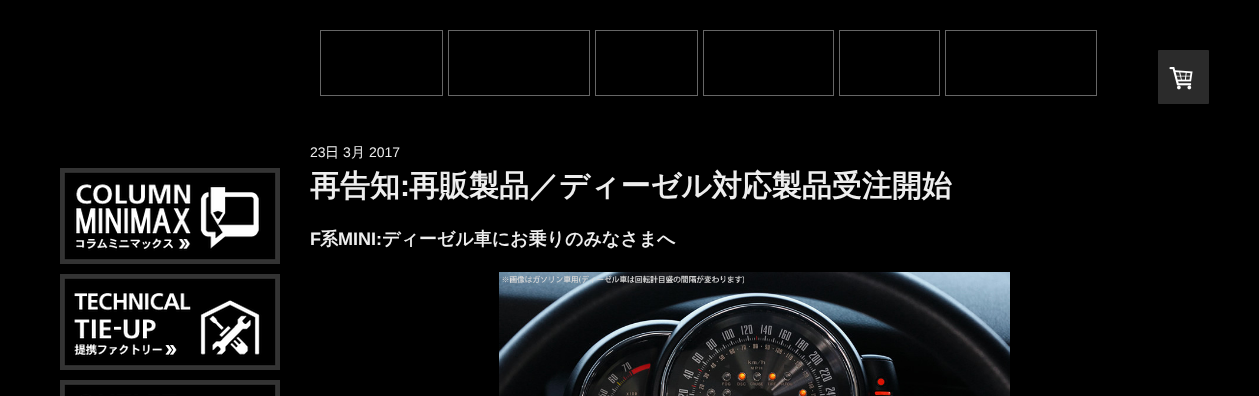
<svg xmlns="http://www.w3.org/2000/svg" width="1259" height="396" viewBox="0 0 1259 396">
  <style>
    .t1 { font: 14px Liberation Sans; fill: #eee; }
    .t2 { font: 500 14px WenQuanYi Zen Hei; fill: #eee; }
    .t3 { font: bold 30px WenQuanYi Zen Hei; fill: #eee; }
    .t4 { font: bold 30px Liberation Sans; fill: #eee; }
    .t5 { font: bold 18px Liberation Sans; fill: #eee; }
    .t6 { font: bold 18px WenQuanYi Zen Hei; fill: #eee; }
  </style>
  <rect width="100%" height="100%" fill="#000"/>
  <rect x="320.5" y="30.5" width="122" height="65" fill="none" stroke="#666"/>
  <rect x="448.5" y="30.5" width="141" height="65" fill="none" stroke="#666"/>
  <rect x="595.5" y="30.5" width="102" height="65" fill="none" stroke="#666"/>
  <rect x="703.5" y="30.5" width="130" height="65" fill="none" stroke="#666"/>
  <rect x="839.5" y="30.5" width="100" height="65" fill="none" stroke="#666"/>
  <rect x="945.5" y="30.5" width="151" height="65" fill="none" stroke="#666"/>
  <rect x="1158" y="50" width="51" height="54" rx="1" fill="#2b2b2b"/>
  <image x="1169" y="67" width="24" height="23" href="images/1.png"/>
  <image x="60" y="168" width="220" height="96" href="images/2.png"/>
  <image x="60" y="274" width="220" height="96" href="images/3.png"/>
  <image x="60" y="380" width="220" height="16" href="images/4.png"/>
  <text x="310" y="157" class="t1">23</text>
  <text x="325" y="157" class="t2">日</text>
  <text x="343" y="157" class="t1">3</text>
  <text x="351" y="157" class="t2">月</text>
  <text x="369" y="157" class="t1">2017</text>
  <text x="310" y="196" class="t3">再告知</text>
  <text x="400" y="196" class="t4">:</text>
  <text x="409" y="196" class="t3">再販製品／ディーゼル対応製品受注開始</text>
  <text x="310" y="245" class="t5">F</text>
  <text x="320" y="245" class="t6">系</text>
  <text x="338" y="245" class="t5">MINI:</text>
  <text x="382" y="245" class="t6">ディーゼル車にお乗りのみなさまへ</text>
  <image x="499" y="272" width="511" height="124" href="images/5.png"/>
</svg>
